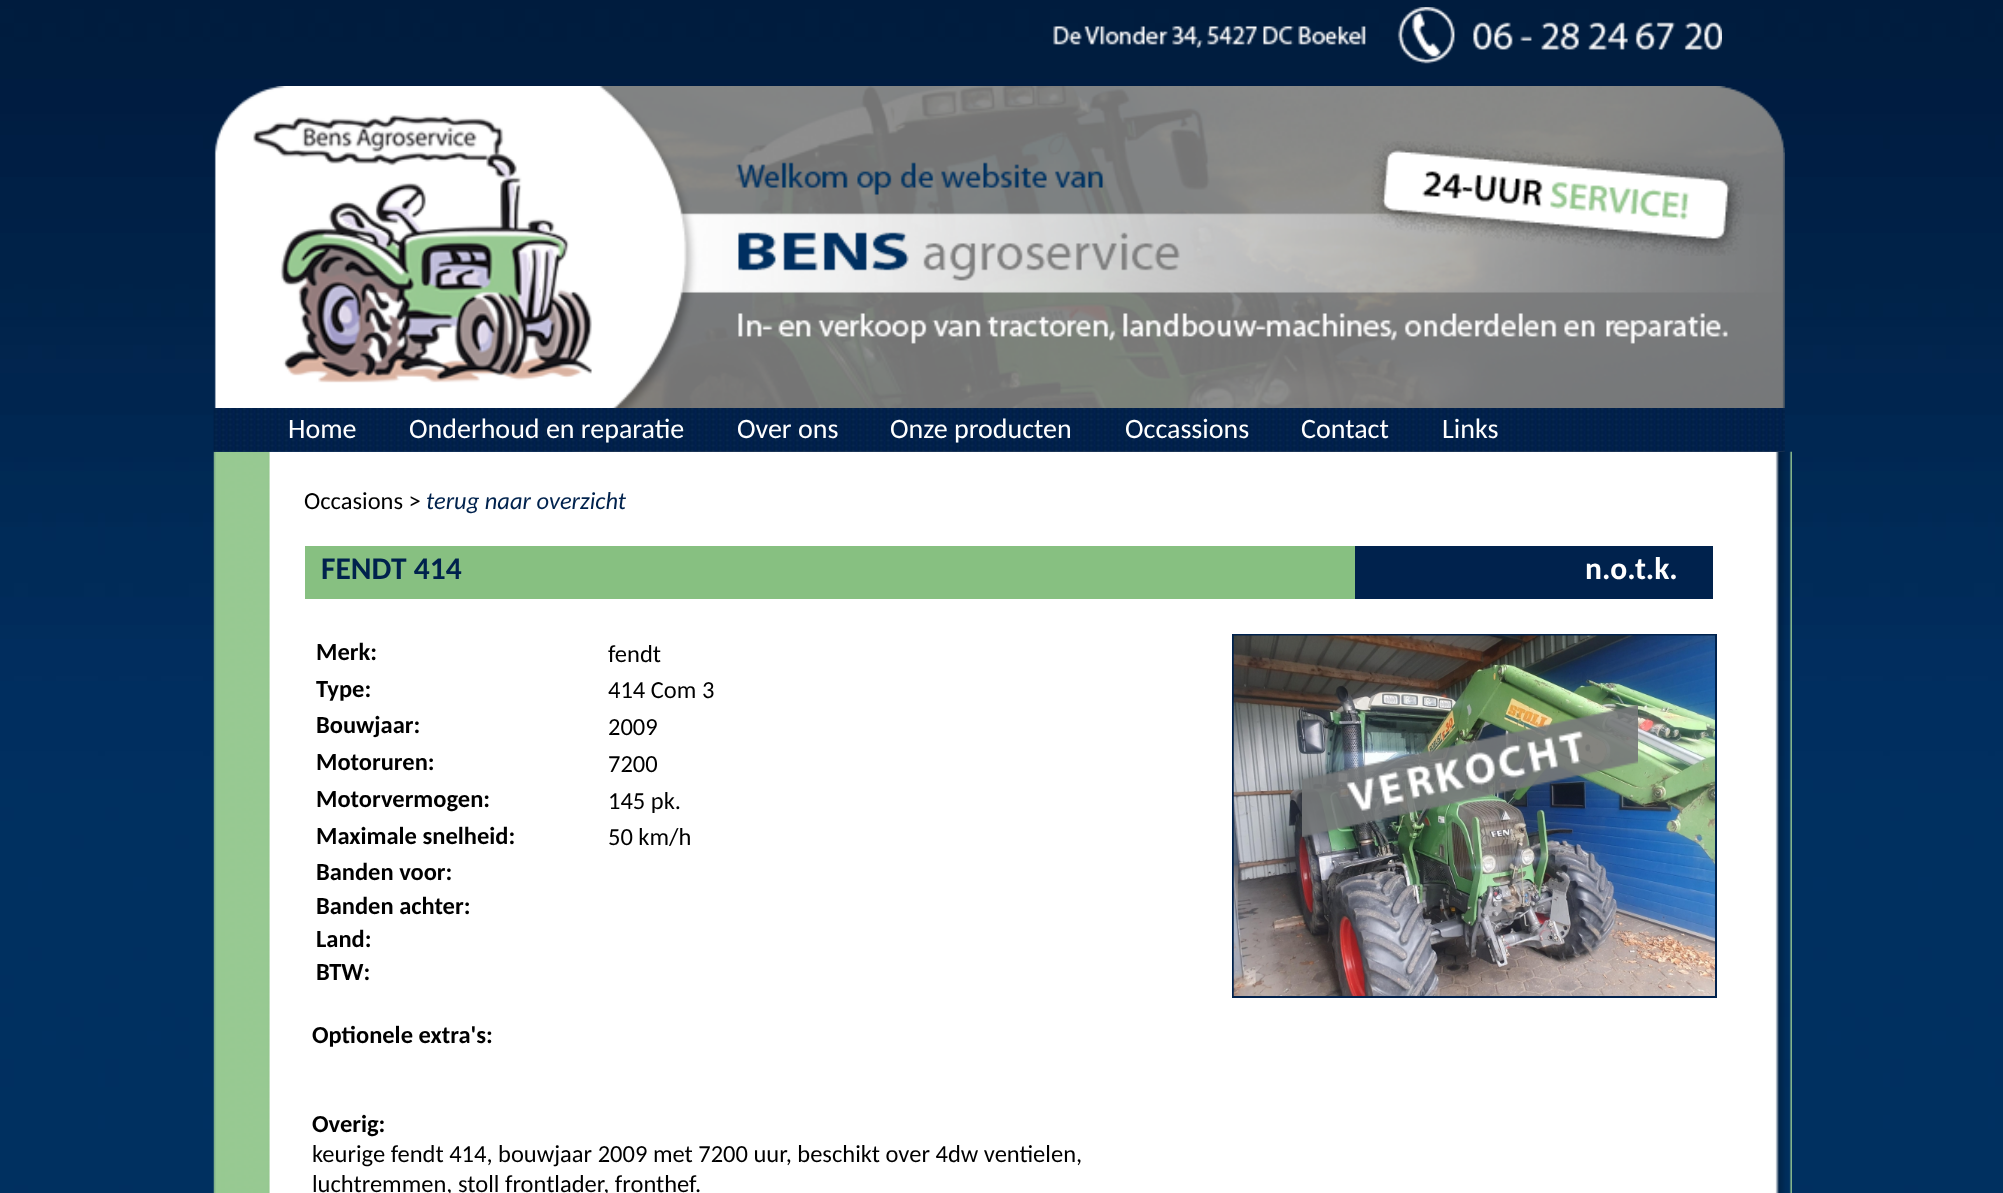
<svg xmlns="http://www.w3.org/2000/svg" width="2003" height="1193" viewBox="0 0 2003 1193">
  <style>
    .t1 { font: 28px Carlito; fill: #fff; }
    .t2 { font: 24.5px Carlito; fill: #000; }
    .t3 { font: italic 24.5px Carlito; fill: #00224d; }
    .t4 { font: bold 31.5px Carlito; fill: #00224d; }
    .t5 { font: bold 31.5px Carlito; fill: #fff; }
    .t6 { font: bold 24.5px Carlito; fill: #000; }
  </style>
  <rect width="100%" height="100%" fill="#fff"/>
  <image x="0" y="0" width="2003" height="1193" href="images/1.png"/>
  <image x="1053" y="7" width="669" height="57" href="images/2.png"/>
  <image x="213" y="451" width="1579" height="742" href="images/6.png"/>
  <image x="214" y="86" width="1571" height="366" href="images/3.png"/>
  <image x="1371" y="141" width="373" height="115" href="images/4.png"/>
  <image x="213" y="408" width="1572" height="44" href="images/5.png"/>
  <text x="288" y="438" class="t1">Home</text>
  <text x="409" y="438" class="t1">Onderhoud en reparatie</text>
  <text x="737" y="438" class="t1">Over ons</text>
  <text x="890" y="438" class="t1">Onze producten</text>
  <text x="1125" y="438" class="t1">Occassions</text>
  <text x="1301" y="438" class="t1">Contact</text>
  <text x="1442" y="438" class="t1">Links</text>
  <text x="304" y="509" class="t2">Occasions &gt;</text>
  <text x="426" y="509" class="t3">terug naar overzicht</text>
  <rect x="305" y="546" width="1050" height="53" fill="#87c081"/>
  <text x="321" y="579" class="t4">FENDT 414</text>
  <rect x="1355" y="546" width="358" height="53" fill="#00224d"/>
  <text x="1585" y="579" class="t5">n.o.t.k.</text>
  <text x="316" y="660" class="t6">Merk:</text>
  <text x="608" y="662" class="t2">fendt</text>
  <text x="316" y="697" class="t6">Type:</text>
  <text x="608" y="698" class="t2">414 Com 3</text>
  <text x="316" y="733" class="t6">Bouwjaar:</text>
  <text x="608" y="735" class="t2">2009</text>
  <text x="316" y="770" class="t6">Motoruren:</text>
  <text x="608" y="772" class="t2">7200</text>
  <text x="316" y="807" class="t6">Motorvermogen:</text>
  <text x="608" y="809" class="t2">145 pk.</text>
  <text x="316" y="844" class="t6">Maximale snelheid:</text>
  <text x="608" y="845" class="t2">50 km/h</text>
  <text x="316" y="880" class="t6">Banden voor:</text>
  <text x="316" y="914" class="t6">Banden achter:</text>
  <text x="316" y="947" class="t6">Land:</text>
  <text x="316" y="980" class="t6">BTW:</text>
  <text x="312" y="1043" class="t6">Optionele extra's:</text>
  <text x="312" y="1132" class="t6">Overig:</text>
  <text x="312" y="1162" class="t2">keurige fendt 414, bouwjaar 2009 met 7200 uur, beschikt over 4dw ventielen,</text>
  <text x="312" y="1192" class="t2">luchtremmen, stoll frontlader, fronthef.</text>
  <rect x="1233" y="635" width="483" height="362" fill="none" stroke="#00224d" stroke-width="2"/>
  <image x="1233" y="635" width="482" height="361" href="images/7.png"/>
  <image x="1302" y="704" width="336" height="133" href="images/8.png"/>
</svg>
